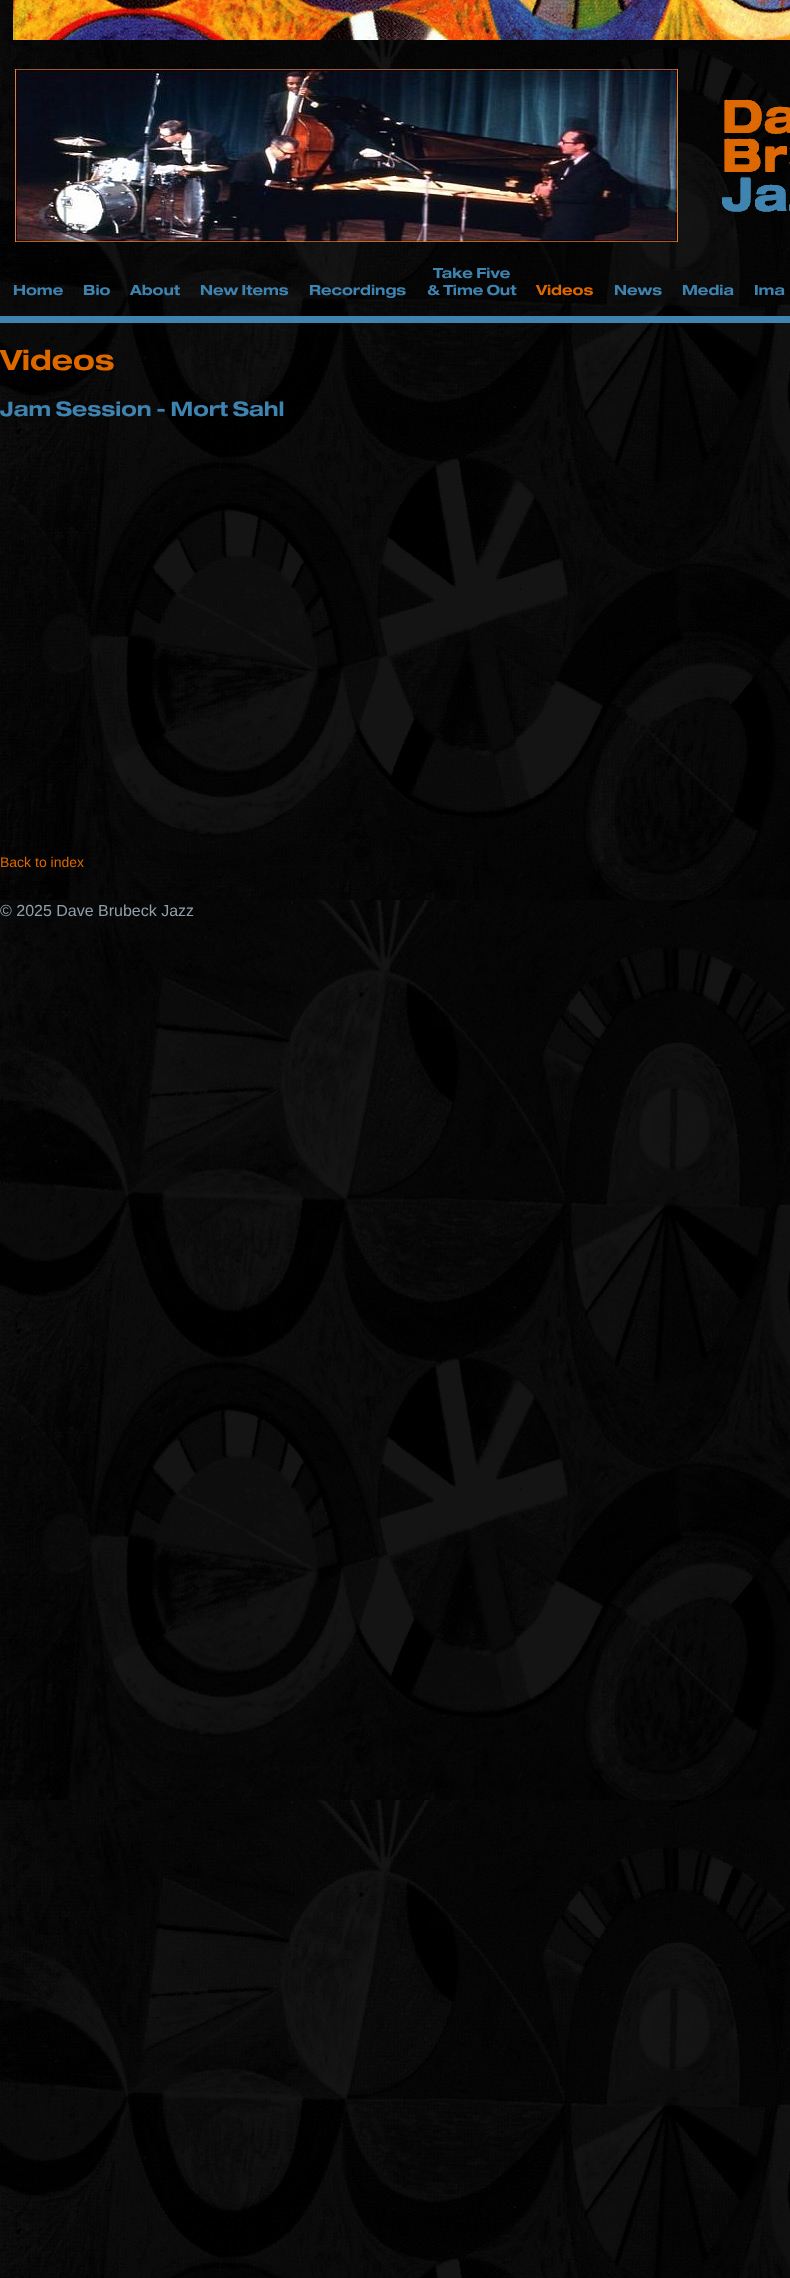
<svg xmlns="http://www.w3.org/2000/svg" width="790" height="2278" viewBox="0 0 790 2278">
  <style>
    .t1 { font: bold 14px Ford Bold; fill: #3f84b0; }
    .t2 { font: bold 14px Ford Bold; fill: #dd6800; }
    .t3 { font: bold 28px Ford Bold; fill: #dd6800; }
    .t4 { font: bold 20px Ford Bold; fill: #3f84b0; }
    .t5 { font: 14px Liberation Sans; fill: #dd6800; }
    .t6 { font: 16px Liberation Sans; fill: #90a0aa; }
  </style>
  <rect width="100%" height="100%" fill="#fff"/>
  <image x="0" y="0" width="790" height="2278" href="images/1.png"/>
  <image x="13" y="0" width="777" height="40" href="images/2.png"/>
  <image x="15" y="69" width="663" height="173" href="images/3.png"/>
  <image x="722" y="99" width="68" height="113" href="images/4.png"/>
  <rect x="0" y="316" width="790" height="7" fill="#3f84b0"/>
  <text x="13" y="295" class="t1">Home</text>
  <text x="83" y="295" class="t1">Bio</text>
  <text x="130" y="295" class="t1">About</text>
  <text x="200" y="295" class="t1">New Items</text>
  <text x="309" y="295" class="t1">Recordings</text>
  <text x="433" y="278" class="t1">Take Five</text>
  <text x="427" y="295" class="t1">&amp; Time Out</text>
  <text x="536" y="295" class="t2">Videos</text>
  <text x="614" y="295" class="t1">News</text>
  <text x="682" y="295" class="t1">Media</text>
  <text x="754" y="295" class="t1">Ima</text>
  <text x="0" y="370" class="t3">Videos</text>
  <text x="0" y="416" class="t4">Jam Session - Mort Sahl</text>
  <text x="0" y="867" class="t5">Back to index</text>
  <text x="0" y="916" class="t6">© 2025 Dave Brubeck Jazz</text>
</svg>
